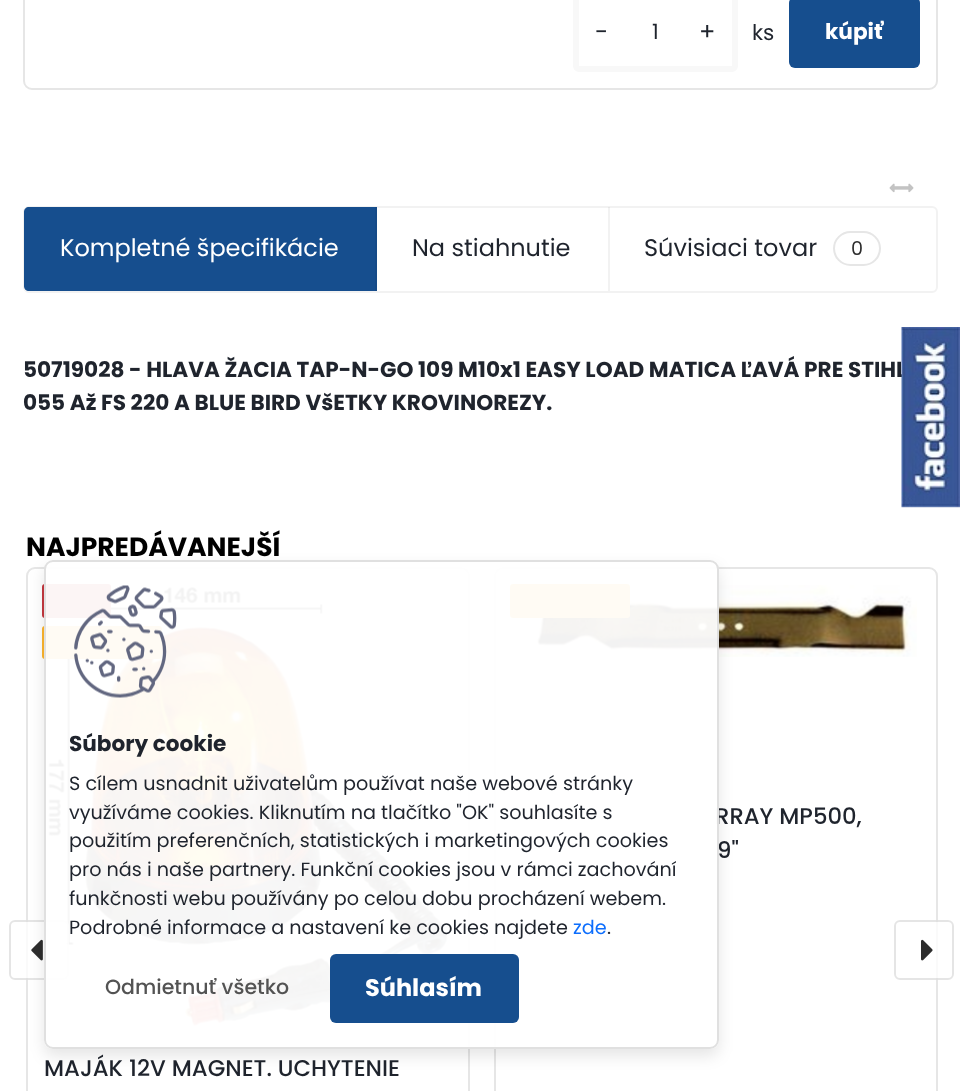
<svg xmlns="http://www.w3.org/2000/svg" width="960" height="1091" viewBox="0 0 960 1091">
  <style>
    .t1 { font: 24px Poppins; fill: #1f242d; }
    .t2 { font: 21px Poppins; fill: #1f242d; }
    .t3 { font: 21.6px Poppins; fill: #1f242d; }
    .t4 { font: bold 21.6px Poppins; fill: #fff; }
    .t5 { font: 24px Poppins; fill: #fff; }
    .t6 { font: 19.2px Poppins; fill: #2d2d2d; }
    .t7 { font: bold 21.6px Poppins; fill: #1f242d; }
    .t8 { font: bold 26.5px Poppins; fill: #000; }
    .t9 { font: 500 22.75px Poppins; fill: #1f242d; }
    .t10 { font: 19.2px Poppins; fill: #1f242d; }
    .t11 { font: 19.2px Poppins; fill: #0d6efd; }
    .t12 { font: 500 20.5px Poppins; fill: #535353; }
    .t13 { font: bold 24px Poppins; fill: #fff; }
  </style>
  <defs>
    <clipPath id="clip1"><path d="M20 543H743V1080H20ZM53 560H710C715 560 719 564 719 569V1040C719 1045 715 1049 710 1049H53C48 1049 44 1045 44 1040V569C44 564 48 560 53 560Z" clip-rule="evenodd"/></clipPath>
  </defs>
  <rect width="100%" height="100%" fill="#fff"/>
  <rect x="24" y="-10" width="913" height="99" rx="8" fill="none" stroke="#e6e6e6" stroke-width="2"/>
  <rect x="576" y="-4" width="159" height="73" rx="3" fill="none" stroke="#f8f8f8" stroke-width="6"/>
  <text x="595" y="40" class="t1">-</text>
  <text x="652" y="39" class="t2">1</text>
  <text x="699" y="40" class="t1">+</text>
  <text x="752" y="40" class="t3">ks</text>
  <rect x="789" y="-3" width="131" height="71" rx="6" fill="#164e8e"/>
  <text x="825" y="39" class="t4">kúpiť</text>
  <image x="889" y="183" width="25" height="10" href="images/1.png"/>
  <rect x="24" y="207" width="913" height="85" rx="5" fill="none" stroke="#f2f2f2" stroke-width="2"/>
  <path d="M29 207H377V291H29C26 291 24 289 24 286V212C24 209 26 207 29 207Z" fill="#164e8e"/>
  <rect x="375" y="207" width="2" height="84" fill="#154a87"/>
  <text x="60" y="256" class="t5">Kompletné špecifikácie</text>
  <rect x="608" y="207" width="2" height="84" fill="#0000000d"/>
  <text x="412" y="256" class="t1">Na stiahnutie</text>
  <text x="644" y="256" class="t1">Súvisiaci tovar</text>
  <rect x="834" y="232" width="46" height="33" rx="16.5" fill="none" stroke="#e6e6e6" stroke-width="2"/>
  <text x="851" y="255" class="t6">0</text>
  <text x="23" y="377" class="t7">50719028 - HLAVA ŽACIA TAP-N-GO 109 M10x1 EASY LOAD MATICA ĽAVÁ PRE STIHL</text>
  <text x="23" y="410" class="t7">055 Až FS 220 A BLUE BIRD VšETKY KROVINOREZY.</text>
  <text x="26" y="556" class="t8">NAJPREDÁVANEJŠÍ</text>
  <rect x="495" y="568" width="442" height="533" rx="8" fill="none" stroke="#e6e6e6" stroke-width="2"/>
  <image x="527" y="585" width="390" height="72" href="images/2.png"/>
  <rect x="510" y="584" width="120" height="34" rx="3" fill="#fdb52d"/>
  <text x="715" y="824" class="t9">RRAY MP500,</text>
  <text x="717" y="858" class="t9">9"</text>
  <rect x="27" y="568" width="442" height="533" rx="8" fill="none" stroke="#e6e6e6" stroke-width="2"/>
  <image x="48" y="585" width="402" height="447" href="images/3.png"/>
  <rect x="42" y="584" width="69" height="34" rx="3" fill="#c5383f"/>
  <rect x="42" y="626" width="120" height="33" rx="3" fill="#fdb52d"/>
  <text x="44" y="1076" class="t9">MAJÁK 12V MAGNET. UCHYTENIE</text>
  <rect x="9" y="920" width="60" height="60" rx="6" fill="#ffffffcc"/>
  <rect x="10" y="921" width="58" height="58" rx="5" fill="none" stroke="#0000001a" stroke-width="2"/>
  <image x="31" y="939" width="12" height="22" href="images/4.png"/>
  <rect x="894" y="920" width="60" height="60" rx="6" fill="#ffffffcc"/>
  <rect x="895" y="921" width="58" height="58" rx="5" fill="none" stroke="#0000001a" stroke-width="2"/>
  <image x="921" y="939" width="12" height="22" href="images/5.png"/>
  <image x="901" y="327" width="59" height="181" href="images/6.png"/>
  <g clip-path="url(#clip1)">
    <rect x="44" y="567" width="675" height="489" rx="9" fill="#0000001a" filter="blur(7.5px)"/>
  </g>
  <rect x="45" y="561" width="673" height="487" rx="8" fill="#fffffff2" stroke="#e0e0e0" stroke-width="2"/>
  <image x="74" y="585" width="103" height="113" href="images/7.png"/>
  <text x="69" y="751" class="t7">Súbory cookie</text>
  <text x="69" y="790" class="t10">S cílem usnadnit uživatelům používat naše webové stránky</text>
  <text x="69" y="819" class="t10">využíváme cookies. Kliknutím na tlačítko "OK" souhlasíte s</text>
  <text x="69" y="847" class="t10">použitím preferenčních, statistických i marketingových cookies</text>
  <text x="69" y="876" class="t10">pro nás i naše partnery. Funkční cookies jsou v rámci zachování</text>
  <text x="69" y="905" class="t10">funkčnosti webu používány po celou dobu procházení webem.</text>
  <text x="69" y="934" class="t10">Podrobné informace a nastavení ke cookies najdete</text>
  <text x="573" y="934" class="t11">zde</text>
  <text x="607" y="934" class="t10">.</text>
  <text x="105" y="994" class="t12">Odmietnuť všetko</text>
  <rect x="330" y="954" width="189" height="69" rx="6" fill="#164e8e"/>
  <text x="365" y="996" class="t13">Súhlasím</text>
</svg>
